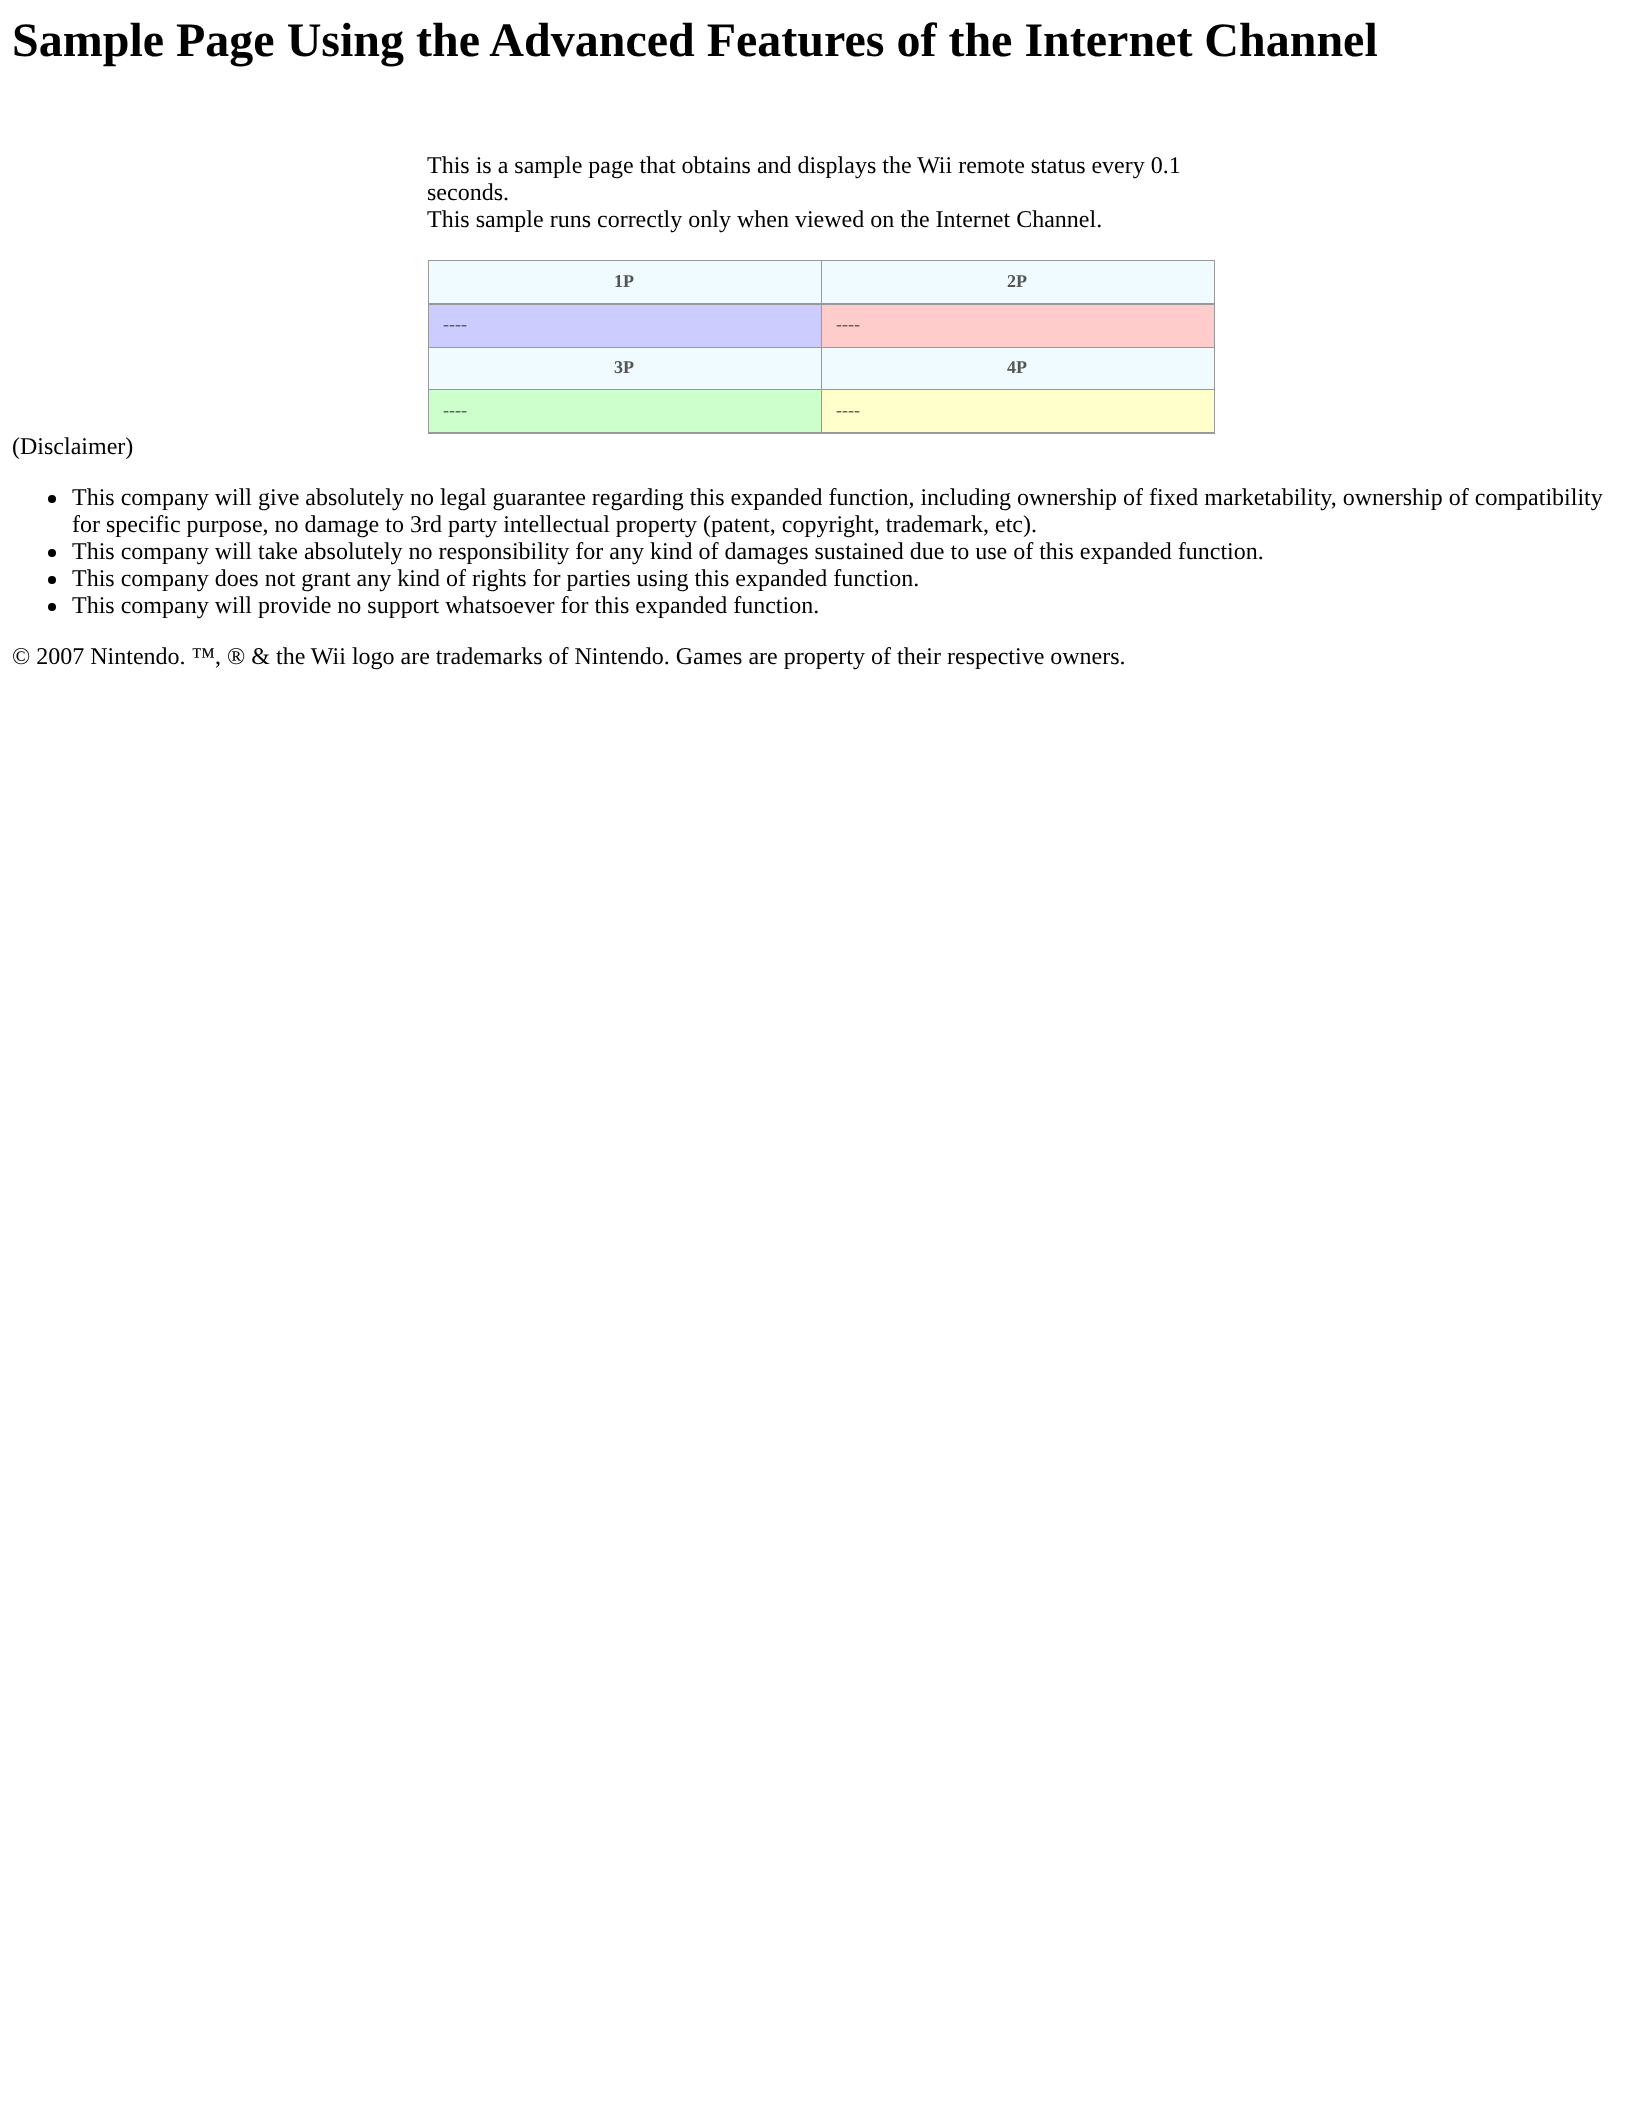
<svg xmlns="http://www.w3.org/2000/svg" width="1640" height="2117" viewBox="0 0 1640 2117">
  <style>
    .t1 { font: bold 48px Liberation Serif; fill: #000; }
    .t2 { font: 24px Liberation Serif; fill: #000; }
    .t3 { font: bold 18px Liberation Serif; fill: #555; }
    .t4 { font: 18px Liberation Serif; fill: #555; }
  </style>
  <rect width="100%" height="100%" fill="#fff"/>
  <text x="12" y="56" class="t1">Sample Page Using the Advanced Features of the Internet Channel</text>
  <text x="427" y="173" class="t2">This is a sample page that obtains and displays the Wii remote status every 0.1</text>
  <text x="427" y="200" class="t2">seconds.</text>
  <text x="427" y="227" class="t2">This sample runs correctly only when viewed on the Internet Channel.</text>
  <rect x="428" y="260" width="787" height="174" fill="#999"/>
  <rect x="429" y="261" width="392" height="42" fill="#f0fbff"/>
  <text x="614" y="287" class="t3">1P</text>
  <rect x="822" y="261" width="392" height="42" fill="#f0fbff"/>
  <text x="1007" y="287" class="t3">2P</text>
  <rect x="429" y="305" width="392" height="42" fill="#ccf"/>
  <text x="443" y="330" class="t4">----</text>
  <rect x="822" y="305" width="392" height="42" fill="#fcc"/>
  <text x="836" y="330" class="t4">----</text>
  <rect x="429" y="348" width="392" height="41" fill="#f0fbff"/>
  <text x="614" y="373" class="t3">3P</text>
  <rect x="822" y="348" width="392" height="41" fill="#f0fbff"/>
  <text x="1007" y="373" class="t3">4P</text>
  <rect x="429" y="390" width="392" height="42" fill="#cfc"/>
  <text x="443" y="416" class="t4">----</text>
  <rect x="822" y="390" width="392" height="42" fill="#ffc"/>
  <text x="836" y="416" class="t4">----</text>
  <text x="12" y="454" class="t2">(Disclaimer)</text>
  <circle cx="52" cy="499" r="4" fill="#000"/>
  <text x="72" y="505" class="t2">This company will give absolutely no legal guarantee regarding this expanded function, including ownership of fixed marketability, ownership of compatibility</text>
  <text x="72" y="532" class="t2">for specific purpose, no damage to 3rd party intellectual property (patent, copyright, trademark, etc).</text>
  <circle cx="52" cy="553" r="4" fill="#000"/>
  <text x="72" y="559" class="t2">This company will take absolutely no responsibility for any kind of damages sustained due to use of this expanded function.</text>
  <circle cx="52" cy="580" r="4" fill="#000"/>
  <text x="72" y="586" class="t2">This company does not grant any kind of rights for parties using this expanded function.</text>
  <circle cx="52" cy="607" r="4" fill="#000"/>
  <text x="72" y="613" class="t2">This company will provide no support whatsoever for this expanded function.</text>
  <text x="12" y="664" class="t2">© 2007 Nintendo. ™, ® &amp; the Wii logo are trademarks of Nintendo. Games are property of their respective owners.</text>
</svg>
